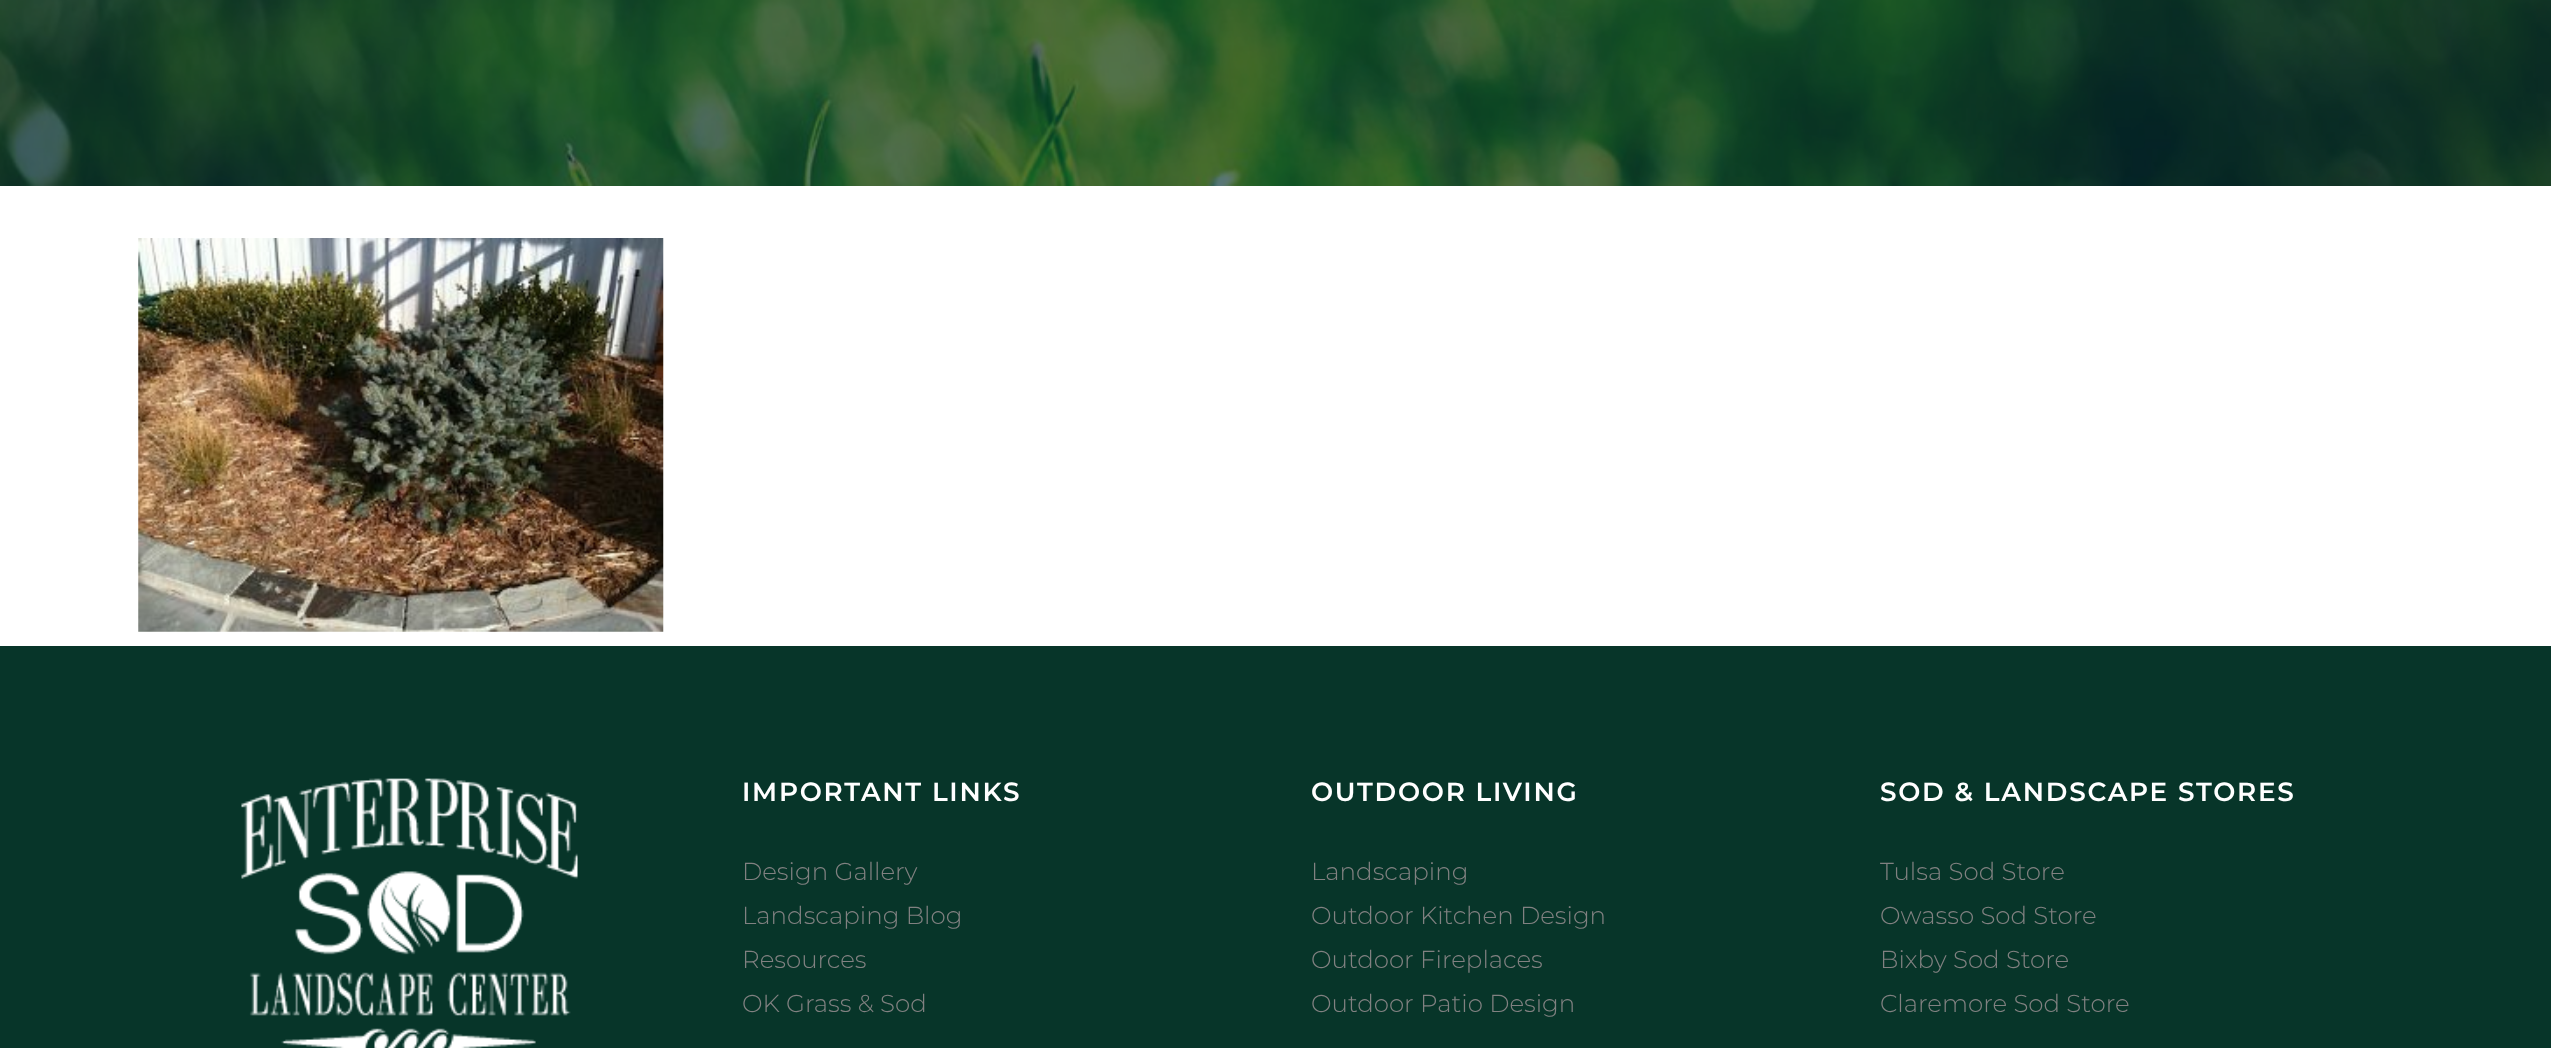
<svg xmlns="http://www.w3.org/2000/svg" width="2551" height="1048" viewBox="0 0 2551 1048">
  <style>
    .t1 { font: 600 26.25px Montserrat; letter-spacing: 1.75px; fill: #fff; }
    .t2 { font: 300 24.5px Montserrat; fill: #818181; }
  </style>
  <rect width="100%" height="100%" fill="#fff"/>
  <image x="0" y="0" width="2551" height="186" href="images/1.png"/>
  <image x="138" y="238" width="526" height="394" href="images/2.png"/>
  <rect x="0" y="646" width="2551" height="402" fill="#073529"/>
  <image x="241" y="778" width="337" height="270" href="images/3.png"/>
  <text x="742" y="801" class="t1">IMPORTANT LINKS</text>
  <text x="742" y="880" class="t2">Design Gallery</text>
  <text x="742" y="924" class="t2">Landscaping Blog</text>
  <text x="742" y="968" class="t2">Resources</text>
  <text x="742" y="1012" class="t2">OK Grass &amp; Sod</text>
  <text x="1311" y="801" class="t1">OUTDOOR LIVING</text>
  <text x="1311" y="880" class="t2">Landscaping</text>
  <text x="1311" y="924" class="t2">Outdoor Kitchen Design</text>
  <text x="1311" y="968" class="t2">Outdoor Fireplaces</text>
  <text x="1311" y="1012" class="t2">Outdoor Patio Design</text>
  <text x="1880" y="801" class="t1">SOD &amp; LANDSCAPE STORES</text>
  <text x="1880" y="880" class="t2">Tulsa Sod Store</text>
  <text x="1880" y="924" class="t2">Owasso Sod Store</text>
  <text x="1880" y="968" class="t2">Bixby Sod Store</text>
  <text x="1880" y="1012" class="t2">Claremore Sod Store</text>
</svg>
